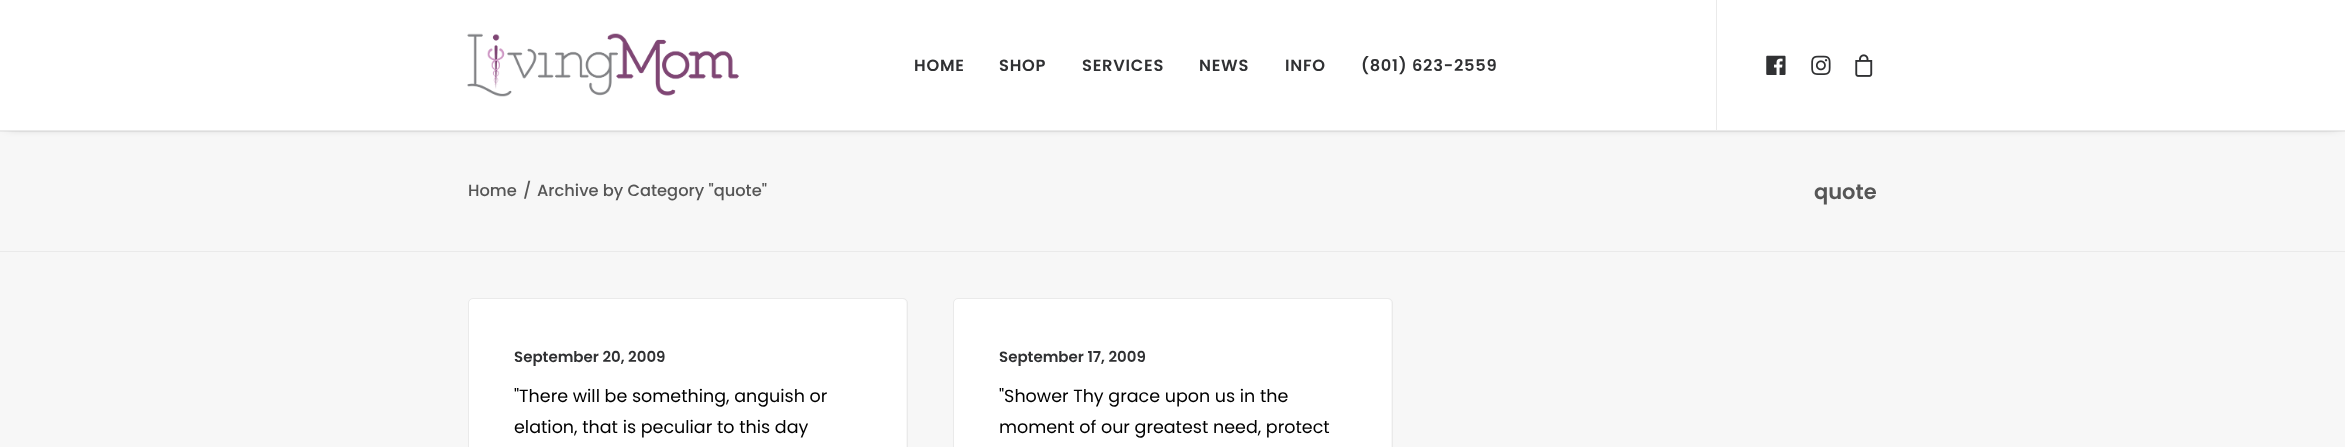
<svg xmlns="http://www.w3.org/2000/svg" width="2345" height="447" viewBox="0 0 2345 447">
  <style>
    .t1 { font: 600 16.25px Poppins; letter-spacing: 0.75px; fill: #303133; }
    .t2 { font: 500 16.25px Poppins; fill: #565656; }
    .t3 { font: 600 21px Poppins; fill: #565656; }
    .t4 { font: 600 15px Poppins; fill: #303133; }
    .t5 { font: 17.5px Poppins; fill: #000; }
  </style>
  <rect width="100%" height="100%" fill="#f7f7f7"/>
  <rect x="0" y="131" width="2345" height="1" fill="#eaeaea"/>
  <rect x="8" y="18" width="2330" height="106" fill="#00000099" filter="blur(6px)"/>
  <rect x="0" y="0" width="2345" height="130" fill="#fff"/>
  <rect x="0" y="130" width="2345" height="1" fill="#eaeaea"/>
  <image x="467" y="33" width="272" height="64" href="images/1.png"/>
  <text x="914" y="71" class="t1">HOME</text>
  <text x="999" y="71" class="t1">SHOP</text>
  <text x="1082" y="71" class="t1">SERVICES</text>
  <text x="1199" y="71" class="t1">NEWS</text>
  <text x="1285" y="71" class="t1">INFO</text>
  <text x="1361" y="71" class="t1">(801) 623-2559</text>
  <rect x="1716" y="0" width="1" height="130" fill="#eaeaea"/>
  <image x="1766" y="55" width="20" height="20" href="images/2.png"/>
  <image x="1811" y="55" width="20" height="20" href="images/3.png"/>
  <image x="1855" y="54" width="18" height="23" href="images/4.png"/>
  <rect x="0" y="251" width="2345" height="1" fill="#eaeaea"/>
  <text x="468" y="196" class="t2">Home</text>
  <text x="523" y="196" class="t2">/</text>
  <text x="537" y="196" class="t2">Archive by Category "quote"</text>
  <text x="1814" y="199" class="t3">quote</text>
  <rect x="469" y="299" width="437" height="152" rx="4" fill="#fff"/>
  <rect x="468.5" y="298.5" width="439" height="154" rx="4.5" fill="none" stroke="#eaeaea"/>
  <text x="514" y="362" class="t4">September 20, 2009</text>
  <text x="514" y="402" class="t5">"There will be something, anguish or</text>
  <text x="514" y="433" class="t5">elation, that is peculiar to this day</text>
  <rect x="954" y="299" width="437" height="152" rx="4" fill="#fff"/>
  <rect x="953.5" y="298.5" width="439" height="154" rx="4.5" fill="none" stroke="#eaeaea"/>
  <text x="999" y="362" class="t4">September 17, 2009</text>
  <text x="999" y="402" class="t5">"Shower Thy grace upon us in the</text>
  <text x="999" y="433" class="t5">moment of our greatest need, protect</text>
</svg>
